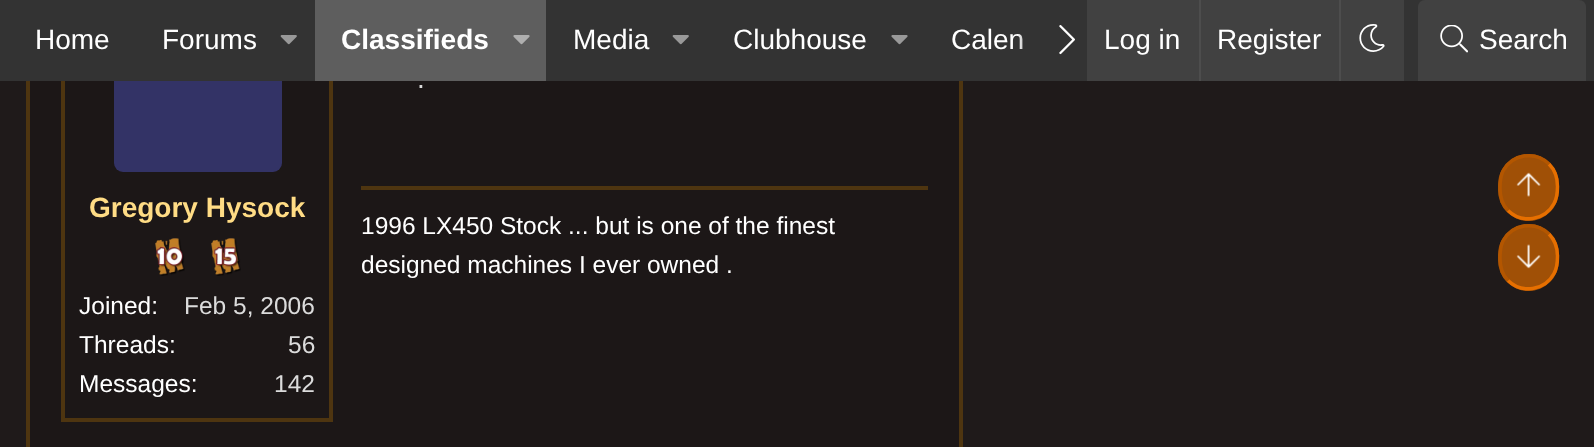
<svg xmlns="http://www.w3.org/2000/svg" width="1594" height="447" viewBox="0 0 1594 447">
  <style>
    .t1 { font: 28px Liberation Sans; fill: #fff; }
    .t2 { font: bold 28px Liberation Sans; fill: #fff; }
    .t3 { font: bold 28px Liberation Sans; fill: #ffdc85; }
    .t4 { font: 24.5px Liberation Sans; fill: #fff; }
    .t5 { font: 24.5px Liberation Sans; fill: #dbdbdb; }
    .t6 { font: 28px Liberation Sans; fill: #dbdbdb; }
  </style>
  <defs>
    <linearGradient id="g1" gradientUnits="userSpaceOnUse" x1="1017" y1="40" x2="1087" y2="40"><stop offset="0" stop-color="#333" stop-opacity="0"/><stop offset="0.33" stop-color="#333"/></linearGradient>
  </defs>
  <rect width="100%" height="100%" fill="#1f1a1a"/>
  <rect x="30" y="81" width="929" height="366" fill="#1c1717"/>
  <rect x="28" y="-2" width="933" height="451" fill="none" stroke="#4e3510" stroke-width="4"/>
  <rect x="63" y="-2" width="268" height="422" fill="none" stroke="#4e3510" stroke-width="4"/>
  <rect x="114" y="4" width="168" height="168" rx="9" fill="#336"/>
  <rect x="0" y="0" width="1594" height="81" fill="#333"/>
  <text x="35" y="49" class="t1">Home</text>
  <text x="162" y="49" class="t1">Forums</text>
  <image x="280" y="35" width="17" height="10" href="images/1.png"/>
  <rect x="315" y="0" width="231" height="81" fill="#5e5e5e"/>
  <text x="341" y="49" class="t2">Classifieds</text>
  <image x="513" y="35" width="17" height="10" href="images/2.png"/>
  <text x="573" y="49" class="t1">Media</text>
  <image x="672" y="35" width="17" height="10" href="images/1.png"/>
  <text x="733" y="49" class="t1">Clubhouse</text>
  <image x="891" y="35" width="17" height="10" href="images/3.png"/>
  <text x="951" y="49" class="t1">Calen</text>
  <rect x="1017" y="34" width="5" height="15" fill="url(#g1)"/>
  <image x="1059" y="25" width="16" height="30" href="images/4.png"/>
  <rect x="1087" y="0" width="317" height="81" fill="#414141"/>
  <text x="1104" y="49" class="t1">Log in</text>
  <rect x="1199" y="0" width="2" height="81" fill="#4d4d4d"/>
  <text x="1217" y="49" class="t1">Register</text>
  <rect x="1339" y="0" width="2" height="81" fill="#4d4d4d"/>
  <image x="1359" y="24" width="26" height="28" href="images/5.png"/>
  <path d="M1425 0H1579C1583 0 1586 3 1586 7V81H1418V7C1418 3 1421 0 1425 0Z" fill="#414141"/>
  <image x="1440" y="25" width="28" height="28" href="images/6.png"/>
  <text x="1479" y="49" class="t1">Search</text>
  <text x="89" y="217" class="t3">Gregory Hysock</text>
  <image x="155" y="238" width="30" height="38" href="images/7.png"/>
  <image x="211" y="238" width="30" height="38" href="images/8.png"/>
  <text x="79" y="314" class="t4">Joined:</text>
  <text x="184" y="314" class="t5">Feb 5, 2006</text>
  <text x="79" y="353" class="t4">Threads:</text>
  <text x="288" y="353" class="t5">56</text>
  <text x="79" y="392" class="t4">Messages:</text>
  <text x="274" y="392" class="t5">142</text>
  <text x="417" y="88" class="t6">.</text>
  <rect x="361" y="186" width="567" height="4" fill="#4e3510"/>
  <text x="361" y="234" class="t4">1996 LX450 Stock ... but is one of the finest</text>
  <text x="361" y="273" class="t4">designed machines I ever owned .</text>
  <rect x="1498" y="154" width="61" height="67" rx="30.5" fill="#cc6300bf"/>
  <path d="M1549 164C1555 170 1557.5 178 1557.5 186.5C1557.5 192.5 1557 198 1554 203.5C1545 220.5 1521.5 224 1508 210.5" fill="none" stroke="#e66f00" stroke-width="3.5"/>
  <path d="M1508 210.5C1502 204.5 1500 196.5 1500 188C1500 182 1500.5 176.5 1503 171C1512 154 1535.5 150.5 1549 164" fill="none" stroke="#b35600" stroke-width="3.5"/>
  <image x="1516" y="172" width="25" height="25" href="images/9.png"/>
  <rect x="1498" y="224" width="61" height="67" rx="30.5" fill="#cc6300bf"/>
  <path d="M1549 234C1555 240 1557.5 248 1557.5 256.5C1557.5 262.5 1557 268 1554 273.5C1545 290.5 1521.5 294 1508 280.5" fill="none" stroke="#e66f00" stroke-width="3.5"/>
  <path d="M1508 280.5C1502 274.5 1500 266.5 1500 258C1500 252 1500.5 246.5 1503 241C1512 224 1535.5 220.5 1549 234" fill="none" stroke="#b35600" stroke-width="3.5"/>
  <image x="1516" y="244" width="25" height="25" href="images/10.png"/>
</svg>
